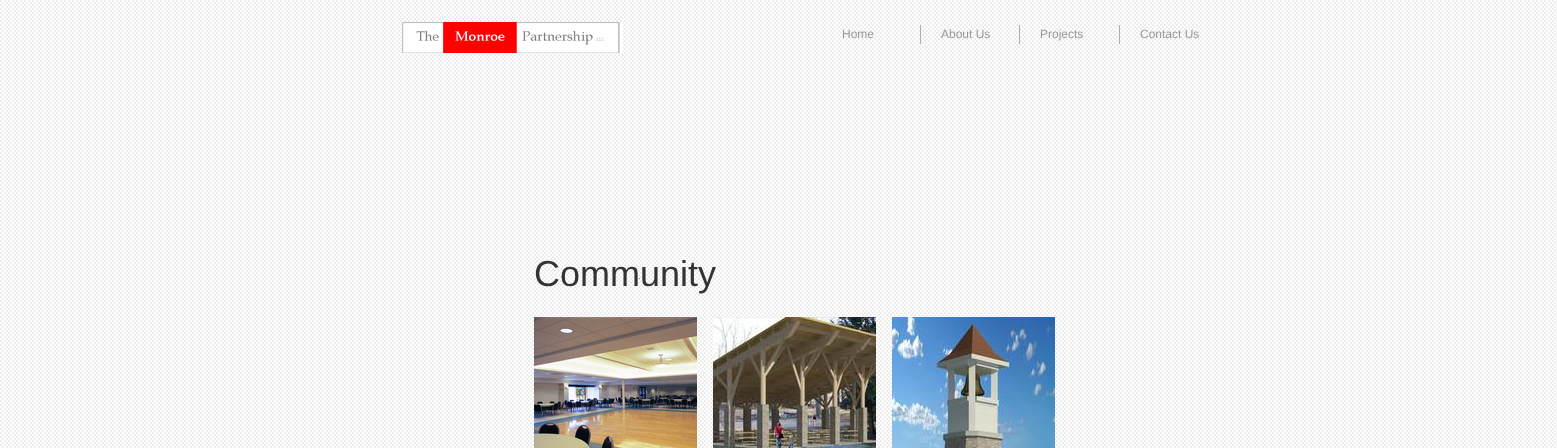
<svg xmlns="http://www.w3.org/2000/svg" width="1557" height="448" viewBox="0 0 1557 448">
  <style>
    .t1 { font: 12px Liberation Sans; fill: #999; }
    .t2 { font: 36px Liberation Sans; fill: #333; }
  </style>
  <rect width="100%" height="100%" fill="#fff"/>
  <image x="0" y="0" width="1557" height="448" href="images/1.png"/>
  <image x="401" y="22" width="222" height="31" href="images/2.png"/>
  <rect x="920" y="25" width="1" height="19" fill="#aeaeae"/>
  <text x="842" y="38" class="t1">Home</text>
  <rect x="1019" y="25" width="1" height="19" fill="#aeaeae"/>
  <text x="941" y="38" class="t1">About Us</text>
  <rect x="1119" y="25" width="1" height="19" fill="#aeaeae"/>
  <text x="1040" y="38" class="t1">Projects</text>
  <text x="1140" y="38" class="t1">Contact Us</text>
  <text x="534" y="286" class="t2">Community</text>
  <rect x="639" y="278" width="1" height="1" fill="#a38154"/>
  <image x="534" y="317" width="163" height="131" href="images/3.png"/>
  <image x="713" y="317" width="163" height="131" href="images/4.png"/>
  <image x="892" y="317" width="163" height="131" href="images/5.png"/>
</svg>
